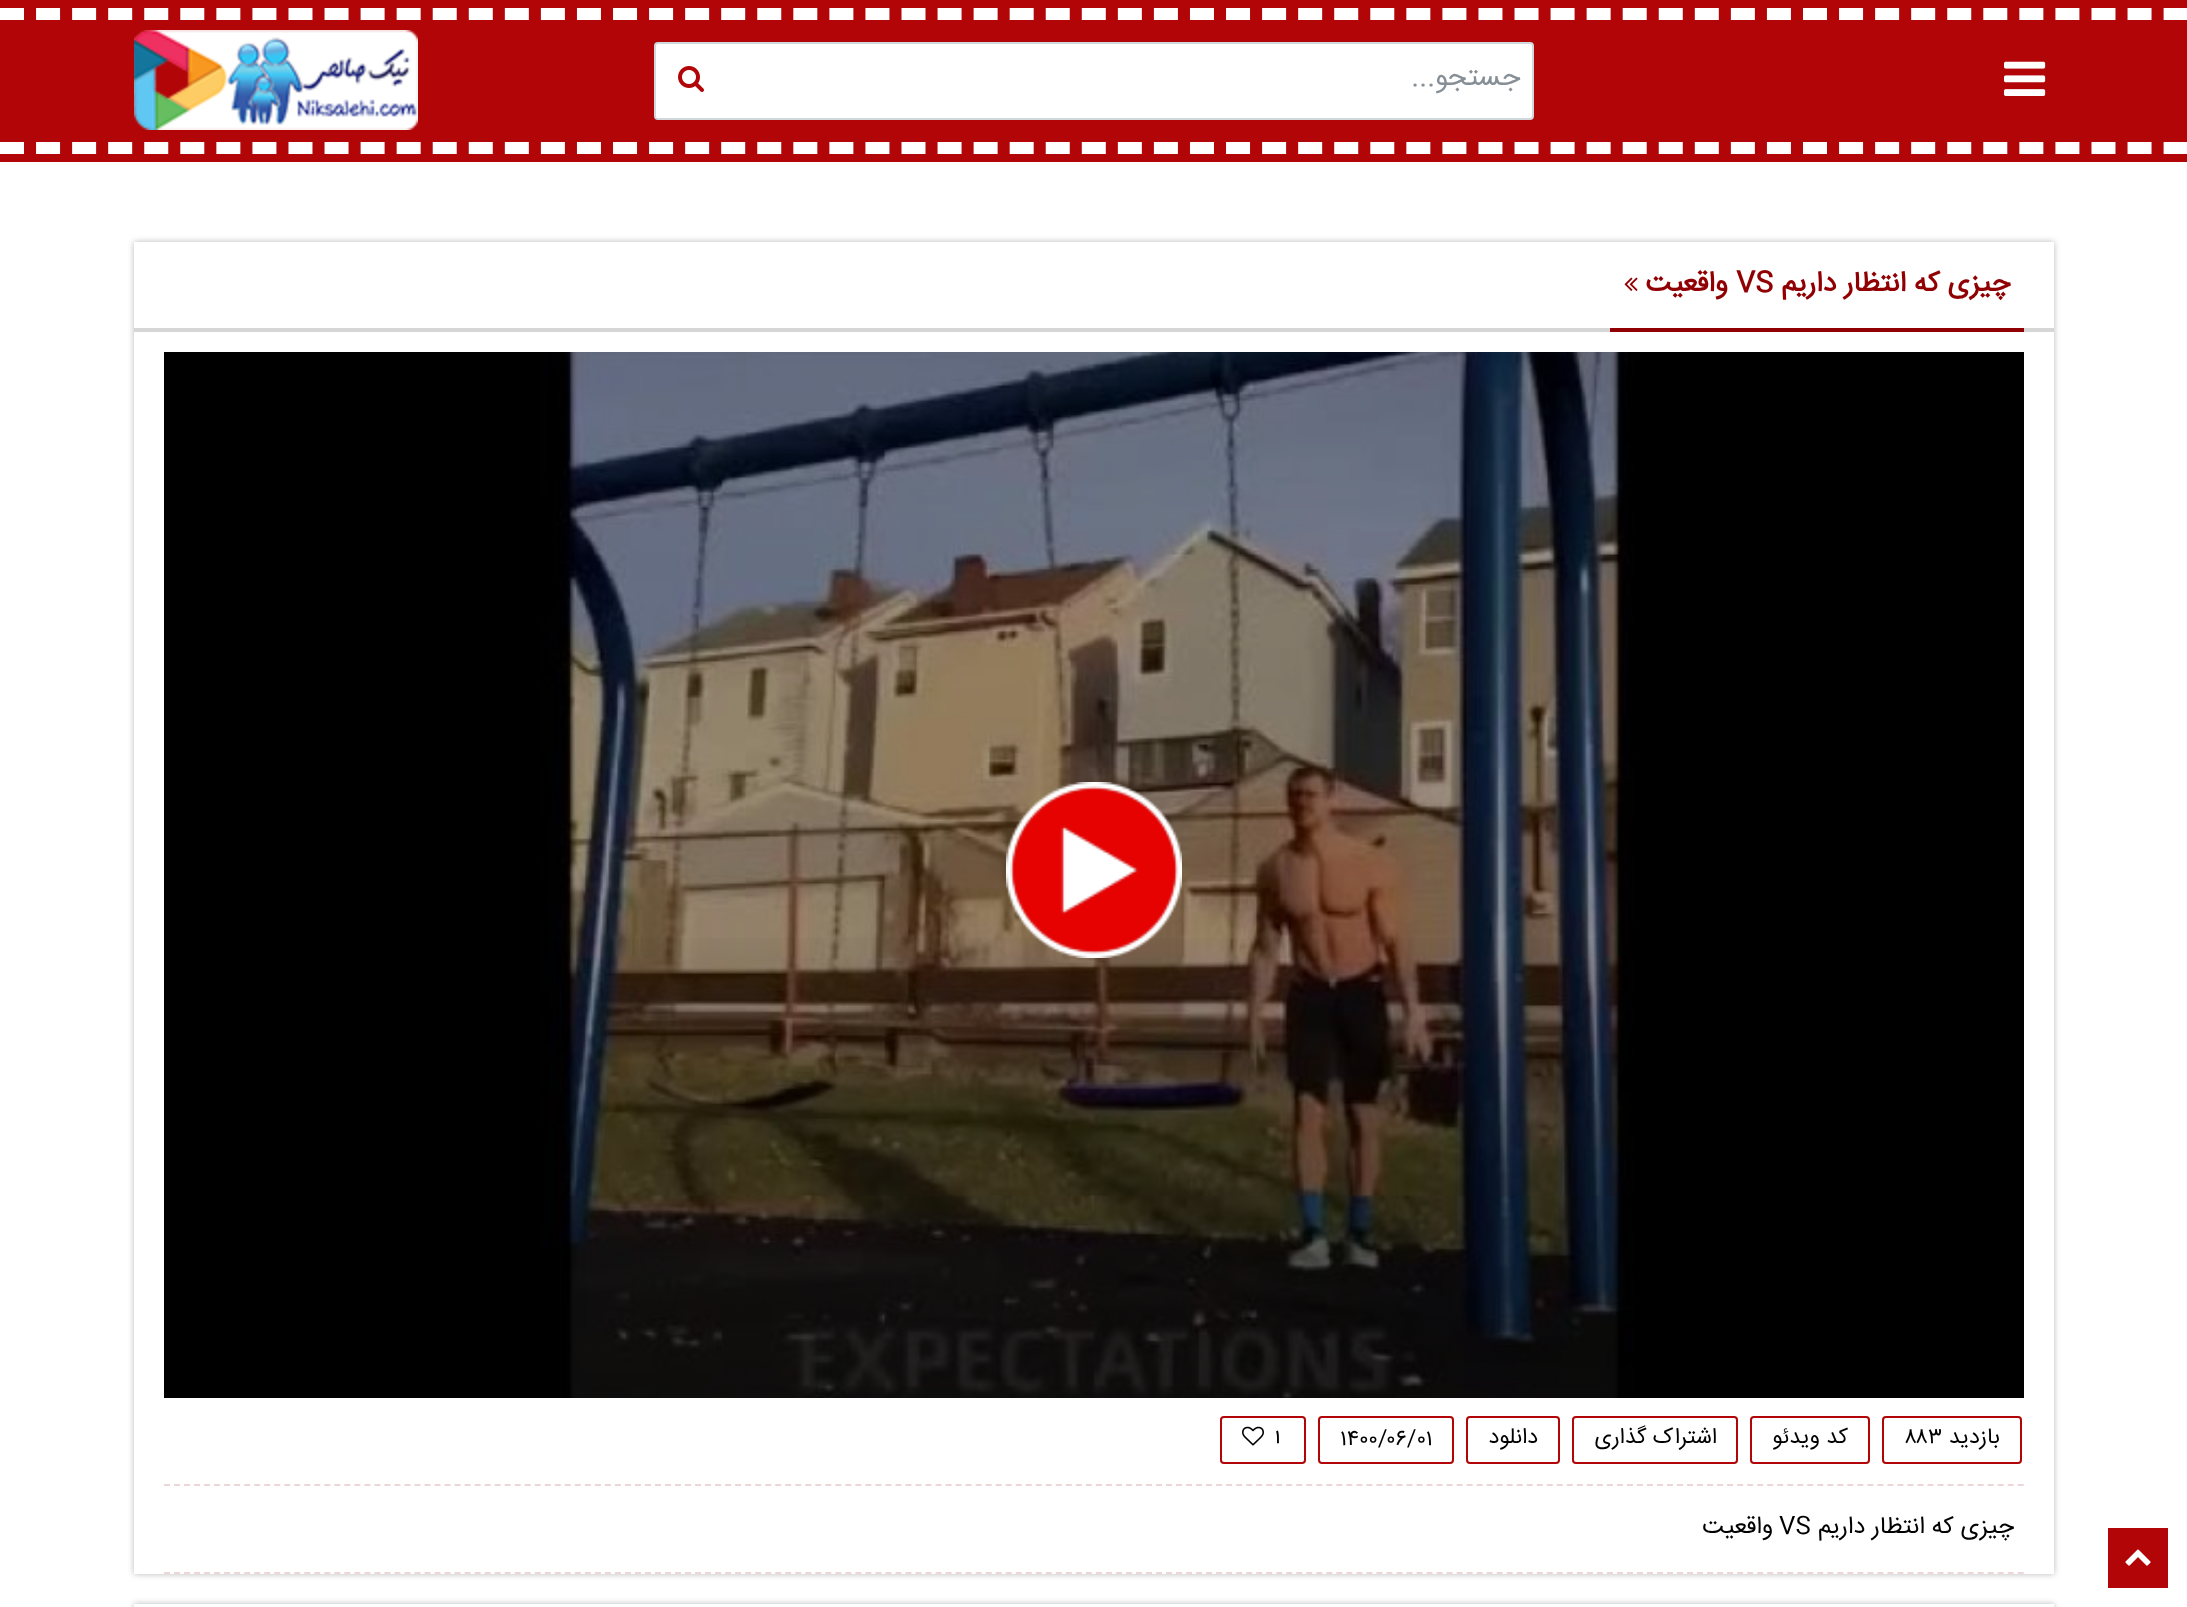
<svg xmlns="http://www.w3.org/2000/svg" width="2187" height="1607" viewBox="0 0 2187 1607">
  <style>
    .t1 { font: 28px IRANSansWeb; direction: rtl; fill: #868e96; }
    .t2 { font: bold 28px IRANSansWeb; direction: rtl; fill: #900003; }
    .t3 { font: bold 28px IRANSansWeb; fill: #900003; }
    .t4 { font: 22px IRANSansWeb; direction: rtl; fill: #000; }
    .t5 { font: 22px IRANSansWeb; fill: #000; }
    .t6 { font: 22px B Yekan; fill: #000; }
    .t7 { font: 24px IRANSansWeb; direction: rtl; fill: #000; }
    .t8 { font: 24px IRANSansWeb; fill: #000; }
  </style>
  <defs>
    <clipPath id="clip1"><path d="M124 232H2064V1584H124ZM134 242H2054V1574H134Z" clip-rule="evenodd"/></clipPath>
    <linearGradient id="g1" gradientUnits="userSpaceOnUse" x1="1094" y1="918" x2="1094" y2="1398"><stop offset="0" stop-color="#000" stop-opacity="0"/><stop offset="0.77" stop-color="#000" stop-opacity="0.4"/><stop offset="1" stop-color="#000" stop-opacity="0.4"/></linearGradient>
    <clipPath id="clip2"><path d="M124 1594H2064V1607H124ZM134 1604H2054V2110H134Z" clip-rule="evenodd"/></clipPath>
  </defs>
  <rect width="100%" height="100%" fill="#fff"/>
  <rect x="0" y="0" width="2187" height="162" fill="#b10508"/>
  <path d="M0 14H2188" fill="none" stroke="#fff" stroke-width="12" stroke-dasharray="24 12.06"/>
  <path d="M0 148H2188" fill="none" stroke="#fff" stroke-width="12" stroke-dasharray="24 12.06"/>
  <image x="2004" y="61" width="42" height="35" href="images/1.png"/>
  <rect x="655" y="43" width="878" height="76" rx="3" fill="#fff" stroke="#d0d8db" stroke-width="2"/>
  <path d="M722 44H1530C1531 44 1532 45 1532 46V116H722Z" fill="#fff"/>
  <text x="1520" y="85" class="t1">جستجو...</text>
  <path d="M658 44H724V118H658C657 118 656 117 656 116V46C656 45 657 44 658 44Z" fill="#fff"/>
  <image x="678" y="66" width="26" height="26" href="images/2.png"/>
  <image x="134" y="30" width="284" height="100" href="images/3.png"/>
  <g clip-path="url(#clip1)">
    <rect x="134" y="242" width="1920" height="1332" fill="#b7b7b7" filter="blur(3px)"/>
  </g>
  <rect x="134" y="328" width="1920" height="4" fill="#d6d6d6"/>
  <rect x="1610" y="328" width="414" height="4" fill="#900003"/>
  <text x="2010" y="291" class="t2">چیزی که انتظار داریم</text>
  <text x="1736" y="291" class="t3">VS</text>
  <text x="1728" y="291" class="t2">واقعیت</text>
  <image x="1624" y="277" width="14" height="14" href="images/4.png"/>
  <rect x="164" y="352" width="1860" height="1046" fill="#000"/>
  <image x="541" y="352" width="1093" height="1046" href="images/5.png"/>
  <rect x="564" y="938" width="1059" height="460" fill="url(#g1)"/>
  <image x="1006" y="782" width="176" height="176" href="images/6.png"/>
  <rect x="1883" y="1417" width="138" height="46" rx="3" fill="none" stroke="#b10508" stroke-width="2"/>
  <text x="2000" y="1443" class="t4">بازدید</text>
  <text x="1904" y="1443" class="t5">۸۸۳</text>
  <rect x="1751" y="1417" width="118" height="46" rx="3" fill="none" stroke="#b10508" stroke-width="2"/>
  <text x="1848" y="1443" class="t4">کد ویدئو</text>
  <rect x="1573" y="1417" width="164" height="46" rx="3" fill="none" stroke="#b10508" stroke-width="2"/>
  <text x="1717" y="1443" class="t4">اشتراک گذاری</text>
  <rect x="1467" y="1417" width="92" height="46" rx="3" fill="none" stroke="#b10508" stroke-width="2"/>
  <text x="1538" y="1443" class="t4">دانلود</text>
  <rect x="1319" y="1417" width="134" height="46" rx="3" fill="none" stroke="#b10508" stroke-width="2"/>
  <text x="1340" y="1445" class="t5">۱۴۰۰/۰۶/۰۱</text>
  <rect x="1221" y="1417" width="84" height="46" rx="3" fill="none" stroke="#b10508" stroke-width="2"/>
  <text x="1271" y="1441" class="t6">۱</text>
  <image x="1242" y="1426" width="22" height="20" href="images/7.png"/>
  <path d="M164 1485H2024" fill="none" stroke="#edd6d7" stroke-width="2" stroke-dasharray="6 4.02"/>
  <path d="M164 1573H2024" fill="none" stroke="#edd6d7" stroke-width="2" stroke-dasharray="6 4.02"/>
  <text x="2014" y="1533" class="t7">چیزی که انتظار داریم</text>
  <text x="1779" y="1533" class="t8">VS</text>
  <text x="1773" y="1533" class="t7">واقعیت</text>
  <g clip-path="url(#clip2)">
    <rect x="134" y="1604" width="1920" height="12" fill="#b7b7b7" filter="blur(3px)"/>
  </g>
  <rect x="2108" y="1528" width="60" height="60" fill="#b10508"/>
  <image x="2125" y="1549" width="26" height="17" href="images/8.png"/>
</svg>
